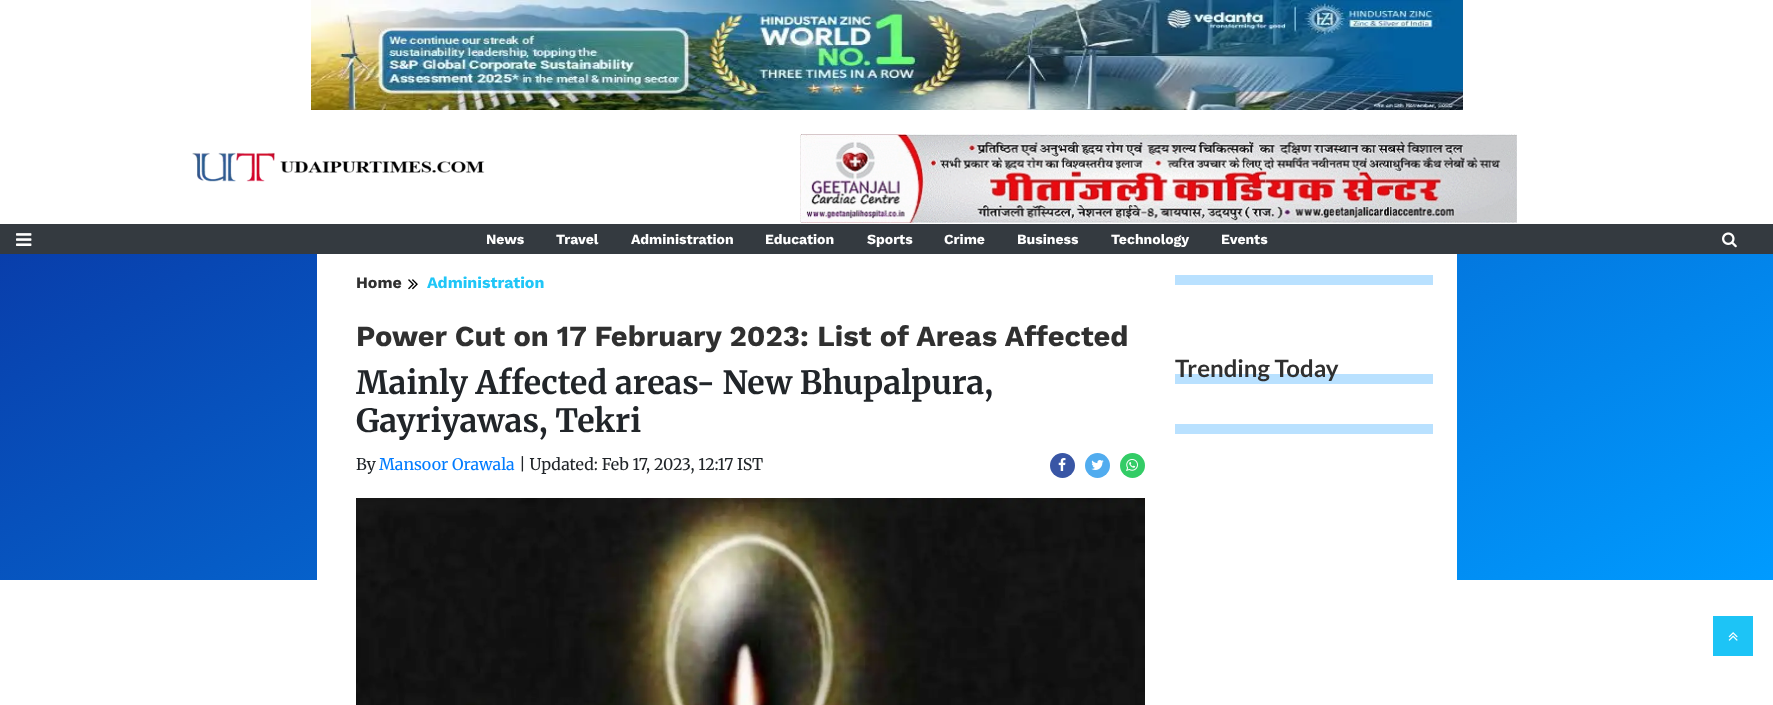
<svg xmlns="http://www.w3.org/2000/svg" width="1773" height="705" viewBox="0 0 1773 705">
  <style>
    .t1 { font: bold 14px Work Sans; fill: #fff; }
    .t2 { font: bold 16px Work Sans; fill: #303030; }
    .t3 { font: bold 16px Work Sans; fill: #20c6f7; }
    .t4 { font: bold 29px Work Sans; fill: #303030; }
    .t5 { font: bold 32px Merriweather; fill: #212529; }
    .t6 { font: 16px Merriweather; fill: #212529; }
    .t7 { font: 16px Merriweather; fill: #007bff; }
    .t8 { font: bold 24px Lato; fill: #303030; }
  </style>
  <defs>
    <linearGradient id="g1" gradientUnits="userSpaceOnUse" x1="557" y1="-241" x2="1216" y2="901"><stop offset="0" stop-color="#0a32a0"/><stop offset="1" stop-color="#009bff"/></linearGradient>
  </defs>
  <rect width="100%" height="100%" fill="#fff"/>
  <image x="311" y="0" width="1152" height="110" href="images/1.png"/>
  <image x="192" y="152" width="293" height="30" href="images/2.png"/>
  <image x="800" y="134" width="717" height="89" href="images/3.png"/>
  <rect x="0" y="224" width="1773" height="30" fill="#343a40"/>
  <image x="16" y="233" width="16" height="13" href="images/4.png"/>
  <text x="486" y="244" class="t1">News</text>
  <text x="556" y="244" class="t1">Travel</text>
  <text x="631" y="244" class="t1">Administration</text>
  <text x="765" y="244" class="t1">Education</text>
  <text x="867" y="244" class="t1">Sports</text>
  <text x="944" y="244" class="t1">Crime</text>
  <text x="1017" y="244" class="t1">Business</text>
  <text x="1111" y="244" class="t1">Technology</text>
  <text x="1221" y="244" class="t1">Events</text>
  <image x="1722" y="232" width="15" height="16" href="images/5.png"/>
  <rect x="0" y="254" width="1773" height="326" fill="url(#g1)"/>
  <rect x="317" y="254" width="1140" height="326" fill="#fff"/>
  <text x="356" y="288" class="t2">Home</text>
  <image x="408" y="279" width="10" height="11" href="images/6.png"/>
  <text x="427" y="288" class="t3">Administration</text>
  <text x="356" y="346" class="t4">Power Cut on 17 February 2023: List of Areas Affected</text>
  <text x="356" y="394" class="t5">Mainly Affected areas- New Bhupalpura,</text>
  <text x="356" y="432" class="t5">Gayriyawas, Tekri</text>
  <text x="356" y="470" class="t6">By</text>
  <text x="379" y="470" class="t7">Mansoor Orawala</text>
  <text x="519" y="470" class="t6">| Updated: Feb 17, 2023, 12:17 IST</text>
  <circle cx="1062.5" cy="465.5" r="12.5" fill="#3956a5"/>
  <image x="1058" y="458" width="8" height="13" href="images/7.png"/>
  <circle cx="1097.5" cy="465.5" r="12.5" fill="#51acef"/>
  <image x="1091" y="460" width="13" height="10" href="images/8.png"/>
  <circle cx="1132.5" cy="465.5" r="12.5" fill="#3c6"/>
  <image x="1126" y="459" width="12" height="12" href="images/9.png"/>
  <image x="356" y="498" width="789" height="207" href="images/10.png"/>
  <rect x="1175" y="275" width="258" height="10" fill="#b9e1ff"/>
  <rect x="1175" y="374" width="258" height="10" fill="#b9e1ff"/>
  <text x="1175" y="377" class="t8">Trending Today</text>
  <rect x="1175" y="424" width="258" height="10" fill="#b9e1ff"/>
  <rect x="1713" y="616" width="40" height="40" fill="#1dc4f6"/>
  <image x="1728" y="632" width="10" height="9" href="images/11.png"/>
</svg>
